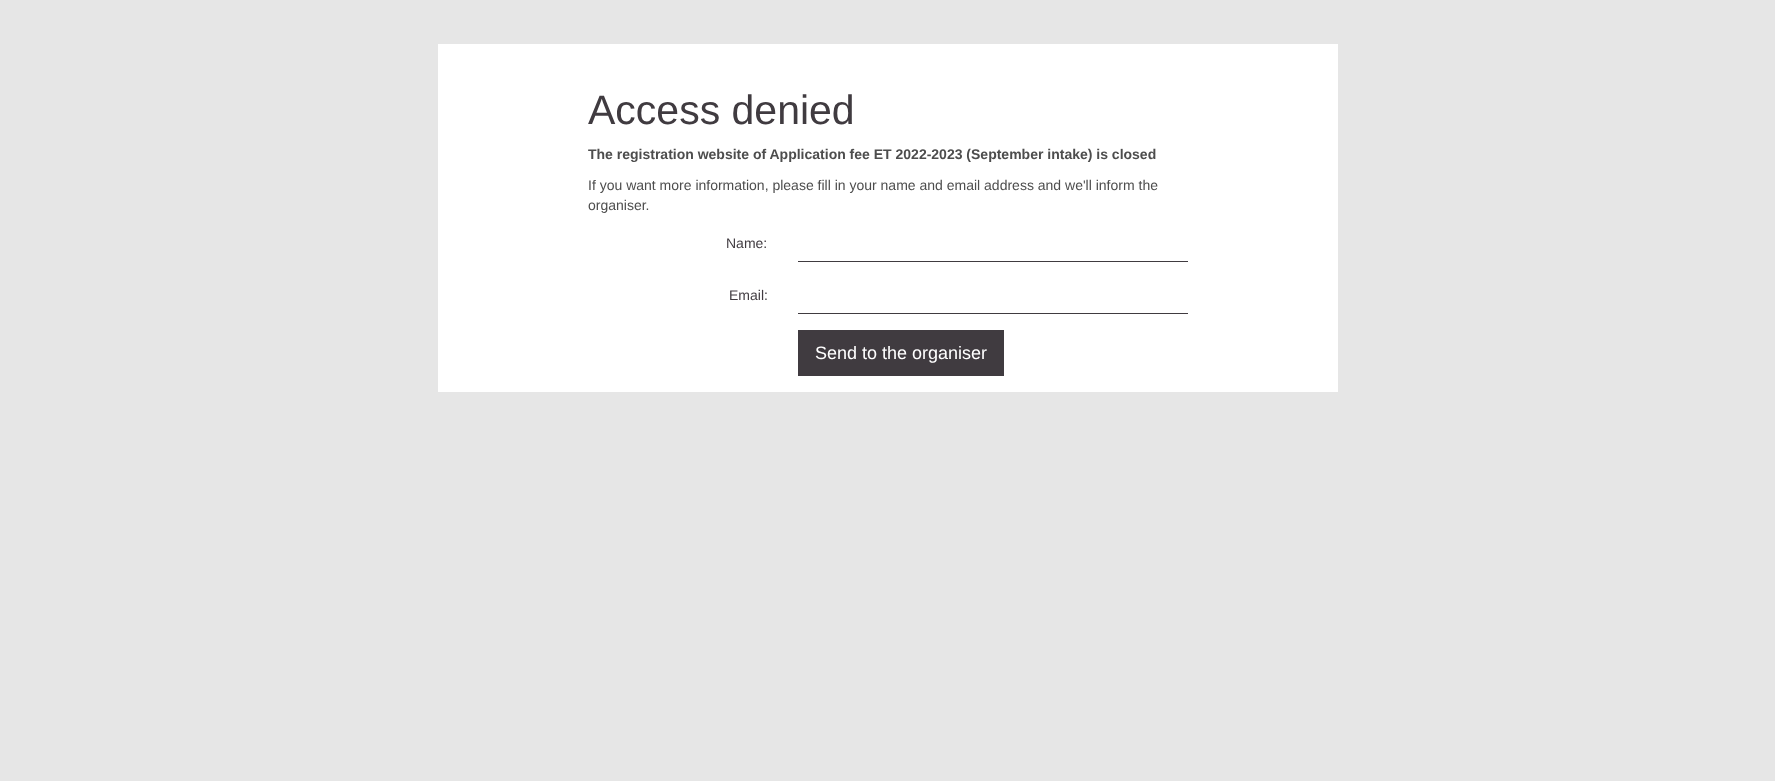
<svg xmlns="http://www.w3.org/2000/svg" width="1775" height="781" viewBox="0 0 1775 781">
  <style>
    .t1 { font: 41px Liberation Sans; fill: #403b40; }
    .t2 { font: bold 14px Liberation Sans; fill: #4d4d4d; }
    .t3 { font: 14px Liberation Sans; fill: #4d4d4d; }
    .t4 { font: 14px Liberation Sans; fill: #403b40; }
    .t5 { font: 18px Liberation Sans; fill: #fff; }
  </style>
  <rect width="100%" height="100%" fill="#e6e6e6"/>
  <rect x="438" y="44" width="900" height="348" fill="#fff"/>
  <text x="588" y="124" class="t1">Access denied</text>
  <text x="588" y="159" class="t2">The registration website of Application fee ET 2022-2023 (September intake) is closed</text>
  <text x="588" y="190" class="t3">If you want more information, please fill in your name and email address and we'll inform the</text>
  <text x="588" y="210" class="t3">organiser.</text>
  <text x="726" y="248" class="t4">Name:</text>
  <rect x="798" y="261" width="390" height="1" fill="#403b40"/>
  <text x="729" y="300" class="t4">Email:</text>
  <rect x="798" y="313" width="390" height="1" fill="#403b40"/>
  <rect x="798" y="330" width="206" height="46" fill="#403b40"/>
  <text x="815" y="359" class="t5">Send to the organiser</text>
</svg>
